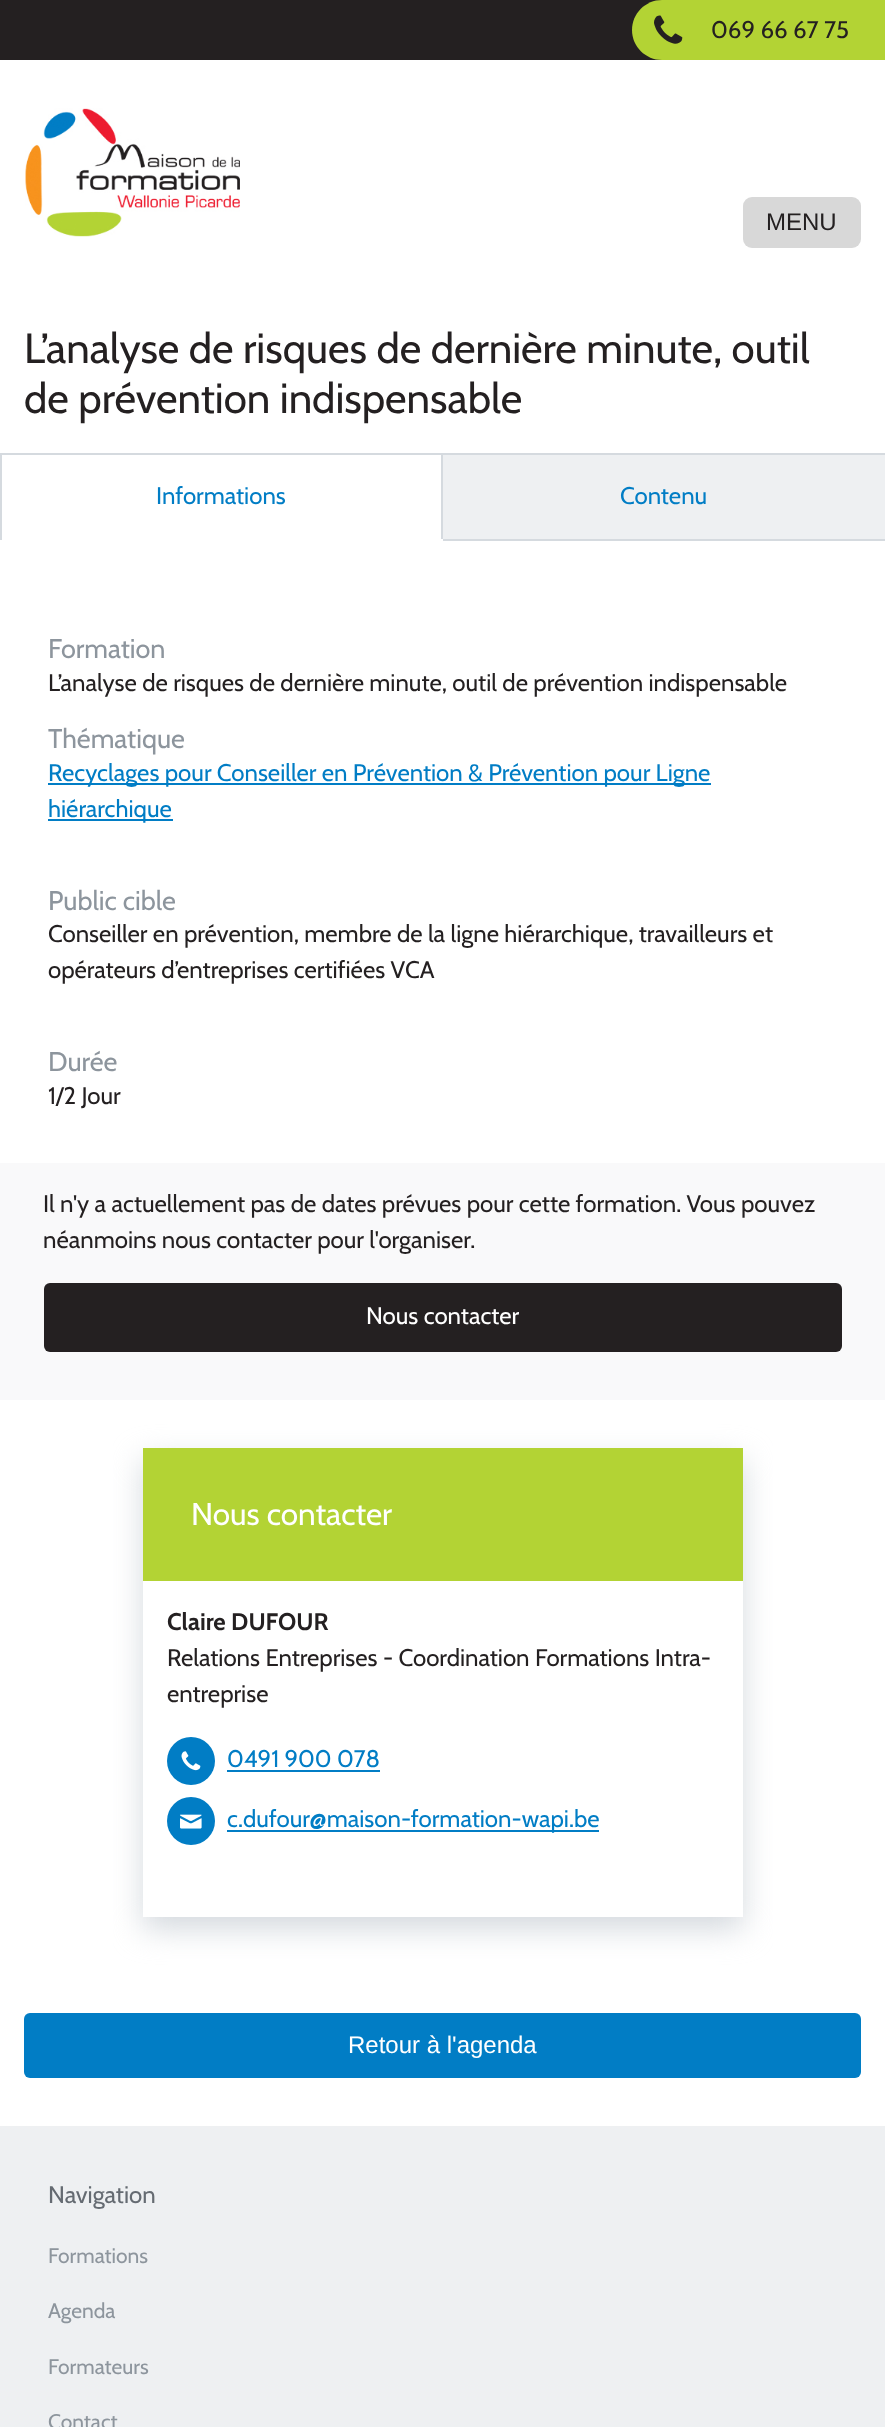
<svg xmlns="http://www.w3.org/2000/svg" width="885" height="2427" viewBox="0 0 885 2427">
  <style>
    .t1 { font: 24px Cabin; fill: #242021; }
    .t2 { font: 24px Liberation Sans; fill: #242021; }
    .t3 { font: 42px Cabin; fill: #242021; }
    .t4 { font: 24px Cabin; fill: #017dc5; }
    .t5 { font: 27px Cabin; fill: #8d959d; }
    .t6 { font: 24px Cabin; fill: #fff; }
    .t7 { font: 31.5px Cabin; fill: #fff; }
    .t8 { font: bold 24px Cabin; fill: #242021; }
    .t9 { font: 24px Liberation Sans; fill: #fff; }
    .t10 { font: 24px Cabin; fill: #656b72; }
    .t11 { font: 21px Cabin; fill: #8d959d; }
  </style>
  <defs>
    <clipPath id="clip1"><path d="M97 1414H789V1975H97ZM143 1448H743V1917H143Z" clip-rule="evenodd"/></clipPath>
  </defs>
  <rect width="100%" height="100%" fill="#fff"/>
  <rect x="0" y="0" width="662" height="60" fill="#242021"/>
  <path d="M662 0H885V60H662C645.5 60 632 46.5 632 30C632 13.5 645.5 0 662 0Z" fill="#b3d334"/>
  <image x="654" y="15" width="29" height="29" href="images/1.png"/>
  <text x="711" y="38" class="t1">069 66 67 75</text>
  <image x="25" y="108" width="215" height="129" href="images/2.png"/>
  <rect x="743" y="197" width="118" height="51" rx="9" fill="#d8d8d8"/>
  <text x="766" y="230" class="t2">MENU</text>
  <text x="24" y="363" class="t3">L’analyse de risques de dernière minute, outil</text>
  <text x="24" y="413" class="t3">de prévention indispensable</text>
  <rect x="443" y="455" width="442" height="84" fill="#eef0f2"/>
  <rect x="0" y="453" width="885" height="2" fill="#d5dadf"/>
  <rect x="441" y="453" width="2" height="87" fill="#d5dadf"/>
  <rect x="441" y="539" width="2" height="1" fill="#fff"/>
  <rect x="0" y="453" width="2" height="87" fill="#d5dadf"/>
  <text x="156" y="504" class="t4">Informations</text>
  <rect x="443" y="539" width="442" height="2" fill="#d5dadf"/>
  <text x="620" y="504" class="t4">Contenu</text>
  <text x="48" y="658" class="t5">Formation</text>
  <text x="48" y="691" class="t1">L’analyse de risques de dernière minute, outil de prévention indispensable</text>
  <text x="48" y="748" class="t5">Thématique</text>
  <rect x="48" y="783" width="663" height="2" fill="#017dc5"/>
  <text x="48" y="781" class="t4">Recyclages pour Conseiller en Prévention &amp; Prévention pour Ligne</text>
  <rect x="48" y="819" width="125" height="2" fill="#017dc5"/>
  <text x="48" y="817" class="t4">hiérarchique</text>
  <text x="48" y="910" class="t5">Public cible</text>
  <text x="48" y="942" class="t1">Conseiller en prévention, membre de la ligne hiérarchique, travailleurs et</text>
  <text x="48" y="978" class="t1">opérateurs d’entreprises certifiées VCA</text>
  <text x="48" y="1071" class="t5">Durée</text>
  <text x="48" y="1104" class="t1">1/2 Jour</text>
  <rect x="0" y="1163" width="885" height="237" fill="#f9f9fa"/>
  <text x="43" y="1212" class="t1">Il n'y a actuellement pas de dates prévues pour cette formation. Vous pouvez</text>
  <text x="43" y="1248" class="t1">néanmoins nous contacter pour l'organiser.</text>
  <rect x="44" y="1283" width="798" height="69" rx="6" fill="#242021"/>
  <text x="366" y="1324" class="t6">Nous contacter</text>
  <g clip-path="url(#clip1)">
    <rect x="143" y="1460" width="600" height="469" fill="#d4d9de" filter="blur(15px)"/>
  </g>
  <rect x="143" y="1448" width="600" height="133" fill="#b3d334"/>
  <text x="191" y="1525" class="t7">Nous contacter</text>
  <text x="167" y="1630" class="t8">Claire DUFOUR</text>
  <text x="167" y="1666" class="t1">Relations Entreprises - Coordination Formations Intra-</text>
  <text x="167" y="1702" class="t1">entreprise</text>
  <circle cx="191" cy="1761" r="24" fill="#017dc5"/>
  <image x="181" y="1751" width="20" height="20" href="images/3.png"/>
  <text x="227" y="1767" class="t4">0491 900 078</text>
  <rect x="227" y="1770" width="153" height="2" fill="#017dc5"/>
  <circle cx="191" cy="1821" r="24" fill="#017dc5"/>
  <image x="180" y="1814" width="22" height="15" href="images/4.png"/>
  <rect x="227" y="1830" width="372" height="2" fill="#017dc5"/>
  <text x="227" y="1827" class="t4">c.dufour@maison-formation-wapi.be</text>
  <rect x="24" y="2013" width="837" height="65" rx="6" fill="#017dc5"/>
  <text x="348" y="2053" class="t9">Retour à l'agenda</text>
  <rect x="0" y="2126" width="885" height="301" fill="#eef0f2"/>
  <text x="48" y="2203" class="t10">Navigation</text>
  <text x="48" y="2263" class="t11">Formations</text>
  <text x="48" y="2318" class="t11">Agenda</text>
  <text x="48" y="2374" class="t11">Formateurs</text>
  <text x="48" y="2429" class="t11">Contact</text>
</svg>
